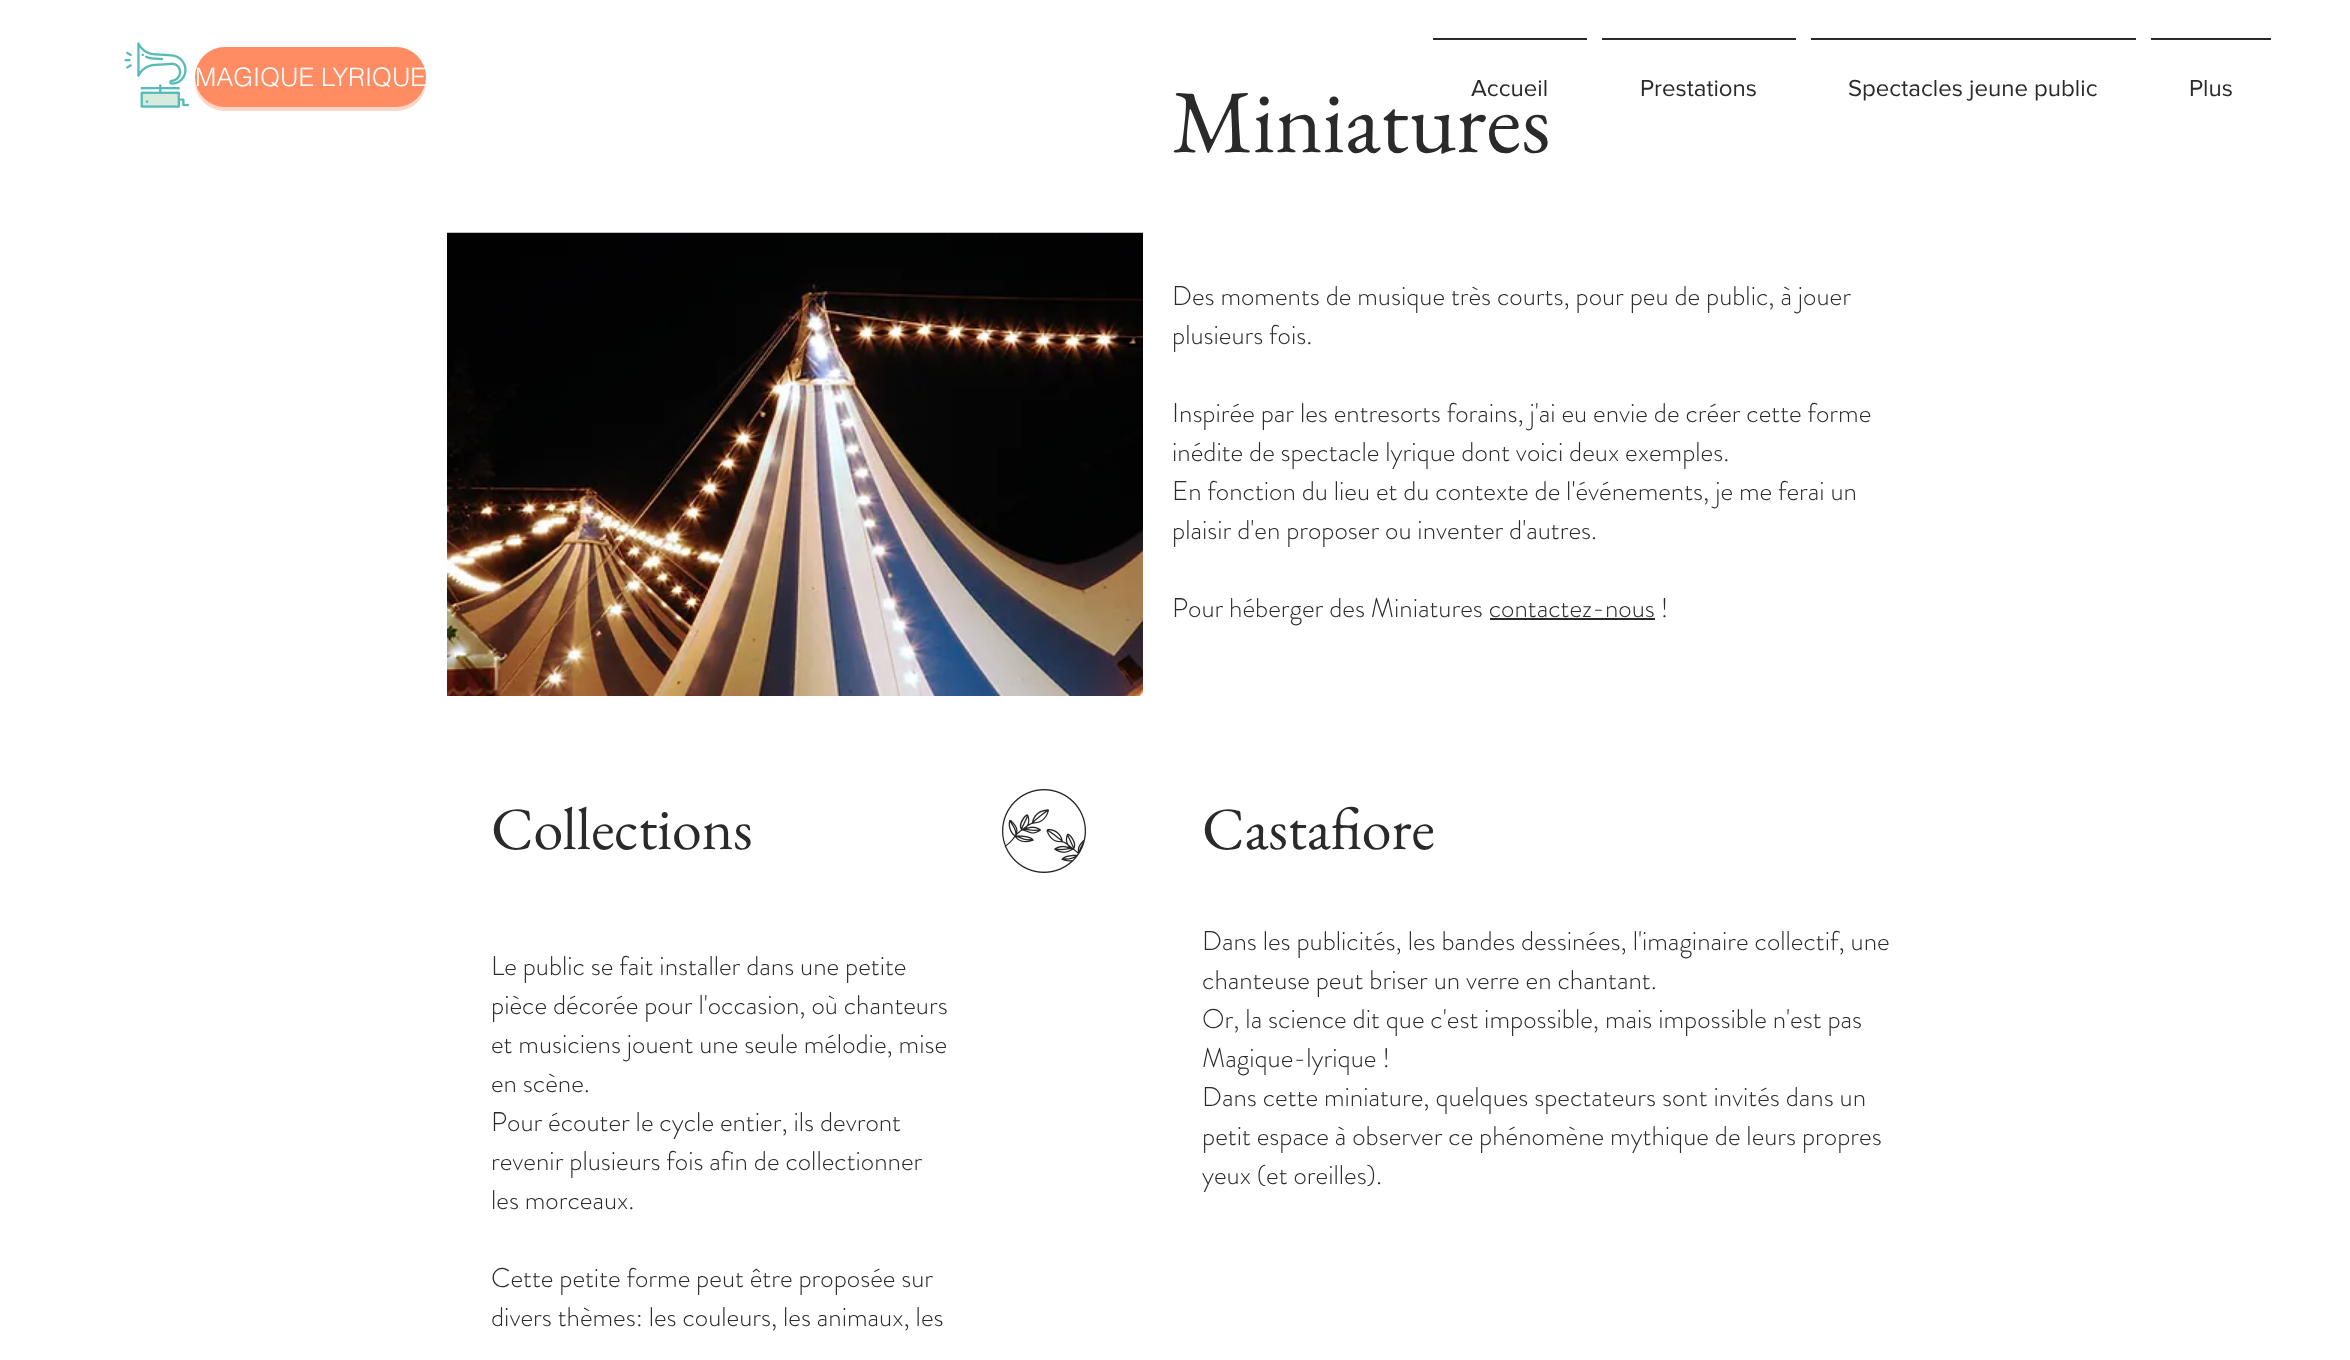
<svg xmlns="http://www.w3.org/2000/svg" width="2350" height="1360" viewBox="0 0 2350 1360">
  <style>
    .t1 { font: 300 25.5px helvetica; fill: #fff; }
    .t2 { font: 24px 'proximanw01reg'; fill: #2a2a2a; }
    .t3 { font: 90px EB Garamond; fill: #2a2a2a; }
    .t4 { font: 300 27px 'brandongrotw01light'; fill: #2a2a2a; }
    .t5 { font: 60px EB Garamond; fill: #2a2a2a; }
  </style>
  <rect width="100%" height="100%" fill="#fff"/>
  <image x="124" y="42" width="65" height="66" href="images/1.png"/>
  <path d="M195 79V81C195 98 208 111 225 111H396C413 111 426 98 426 81V79C425 94 412 106 396 106H225C209 106 196 94 195 79Z" fill="#ffd7c8"/>
  <rect x="195" y="47" width="231" height="60" rx="30" fill="#ff8c62"/>
  <text x="195" y="86" class="t1">MAGIQUE LYRIQUE</text>
  <rect x="1433" y="38" width="154" height="2" fill="#2a2a2a"/>
  <text x="1471" y="96" class="t2">Accueil</text>
  <rect x="1602" y="38" width="194" height="2" fill="#2a2a2a"/>
  <text x="1640" y="96" class="t2">Prestations</text>
  <rect x="1811" y="38" width="325" height="2" fill="#2a2a2a"/>
  <text x="1848" y="96" class="t2">Spectacles jeune public</text>
  <rect x="2151" y="38" width="120" height="2" fill="#2a2a2a"/>
  <text x="2189" y="96" class="t2">Plus</text>
  <text x="1172" y="152" class="t3">Miniatures</text>
  <image x="447" y="232" width="696" height="464" href="images/2.png"/>
  <text x="1172" y="305" class="t4">Des moments de musique très courts, pour peu de public, à jouer</text>
  <text x="1172" y="344" class="t4">plusieurs fois.</text>
  <text x="1172" y="422" class="t4">Inspirée par les entresorts forains, j'ai eu envie de créer cette forme</text>
  <text x="1172" y="461" class="t4">inédite de spectacle lyrique dont voici deux exemples.</text>
  <text x="1172" y="500" class="t4">En fonction du lieu et du contexte de l'événements, je me ferai un</text>
  <text x="1172" y="539" class="t4">plaisir d'en proposer ou inventer d'autres.</text>
  <text x="1172" y="617" class="t4">Pour héberger des Miniatures contactez-nous !</text>
  <rect x="1490" y="618" width="165" height="2" fill="#2a2a2a"/>
  <text x="491" y="849" class="t5">Collections</text>
  <image x="1002" y="789" width="84" height="84" href="images/3.png"/>
  <text x="1202" y="849" class="t5">Castafiore</text>
  <text x="491" y="975" class="t4">Le public se fait installer dans une petite</text>
  <text x="491" y="1014" class="t4">pièce décorée pour l'occasion, où chanteurs</text>
  <text x="491" y="1053" class="t4">et musiciens jouent une seule mélodie, mise</text>
  <text x="491" y="1092" class="t4">en scène.</text>
  <text x="491" y="1131" class="t4">Pour écouter le cycle entier, ils devront</text>
  <text x="491" y="1170" class="t4">revenir plusieurs fois afin de collectionner</text>
  <text x="491" y="1209" class="t4">les morceaux.</text>
  <text x="491" y="1287" class="t4">Cette petite forme peut être proposée sur</text>
  <text x="491" y="1326" class="t4">divers thèmes: les couleurs, les animaux, les</text>
  <text x="1202" y="950" class="t4">Dans les publicités, les bandes dessinées, l'imaginaire collectif, une</text>
  <text x="1202" y="989" class="t4">chanteuse peut briser un verre en chantant.</text>
  <text x="1202" y="1028" class="t4">Or, la science dit que c'est impossible, mais impossible n'est pas</text>
  <text x="1202" y="1067" class="t4">Magique-lyrique !</text>
  <text x="1202" y="1106" class="t4">Dans cette miniature, quelques spectateurs sont invités dans un</text>
  <text x="1202" y="1145" class="t4">petit espace à observer ce phénomène mythique de leurs propres</text>
  <text x="1202" y="1184" class="t4">yeux (et oreilles).</text>
</svg>
